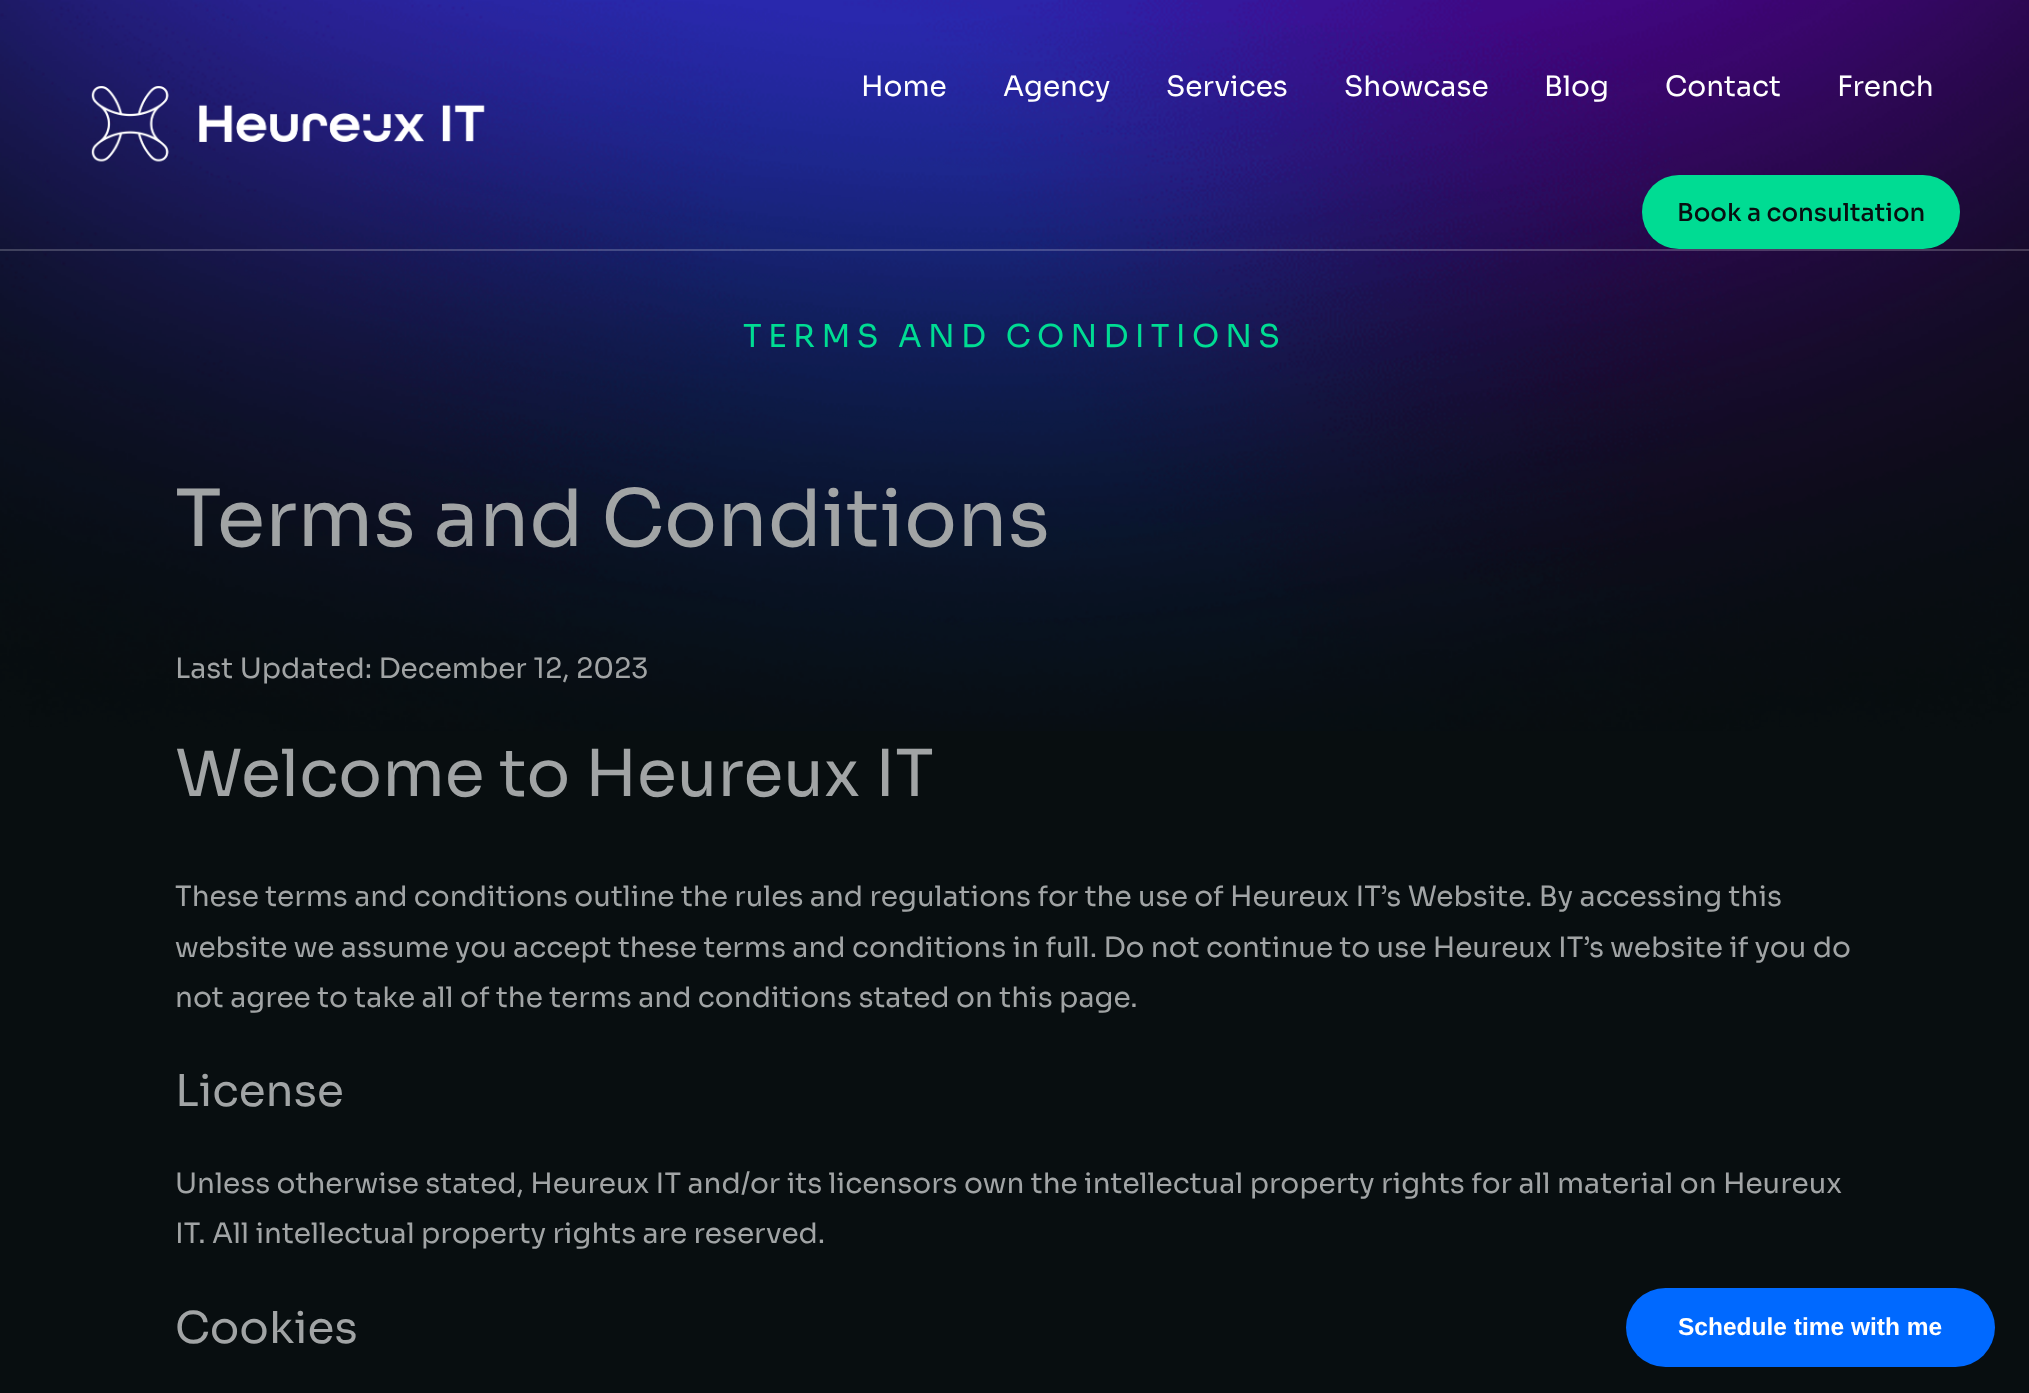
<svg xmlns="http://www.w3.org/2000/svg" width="2029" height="1393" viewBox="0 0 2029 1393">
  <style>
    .t1 { font: 28px Sora; fill: #fff; }
    .t2 { font: 500 24.5px Sora; fill: #080e10; }
    .t3 { font: 31.5px Sora; letter-spacing: 6.25px; fill: #00dc93; }
    .t4 { font: 78.75px Sora; fill: #a1a4a5; }
    .t5 { font: 28px Sora; fill: #a1a4a5; }
    .t6 { font: 64.75px Sora; fill: #a1a4a5; }
    .t7 { font: 43.75px Sora; fill: #a1a4a5; }
    .t8 { font: bold 24.5px Liberation Sans; fill: #fff; }
  </style>
  <rect width="100%" height="100%" fill="#080e10"/>
  <image x="0" y="0" width="2029" height="731" href="images/1.png"/>
  <rect x="0" y="249" width="2029" height="2" fill="#ffffff33"/>
  <image x="91" y="86" width="394" height="76" href="images/2.png"/>
  <text x="861" y="96" class="t1">Home</text>
  <text x="1003" y="96" class="t1">Agency</text>
  <text x="1166" y="96" class="t1">Services</text>
  <text x="1344" y="96" class="t1">Showcase</text>
  <text x="1544" y="96" class="t1">Blog</text>
  <text x="1665" y="96" class="t1">Contact</text>
  <text x="1837" y="96" class="t1">French</text>
  <rect x="1642" y="175" width="318" height="74" rx="37" fill="#00dc93"/>
  <text x="1677" y="221" class="t2">Book a consultation</text>
  <text x="743" y="347" class="t3">TERMS AND CONDITIONS</text>
  <text x="175" y="546" class="t4">Terms and Conditions</text>
  <text x="175" y="678" class="t5">Last Updated: December 12, 2023</text>
  <text x="175" y="796" class="t6">Welcome to Heureux IT</text>
  <text x="175" y="906" class="t5">These terms and conditions outline the rules and regulations for the use of Heureux IT’s Website. By accessing this</text>
  <text x="175" y="957" class="t5">website we assume you accept these terms and conditions in full. Do not continue to use Heureux IT’s website if you do</text>
  <text x="175" y="1007" class="t5">not agree to take all of the terms and conditions stated on this page.</text>
  <text x="175" y="1106" class="t7">License</text>
  <text x="175" y="1193" class="t5">Unless otherwise stated, Heureux IT and/or its licensors own the intellectual property rights for all material on Heureux</text>
  <text x="175" y="1243" class="t5">IT. All intellectual property rights are reserved.</text>
  <text x="175" y="1343" class="t7">Cookies</text>
  <rect x="1626" y="1288" width="369" height="79" rx="39.5" fill="#0069ff"/>
  <text x="1678" y="1335" class="t8">Schedule time with me</text>
</svg>
